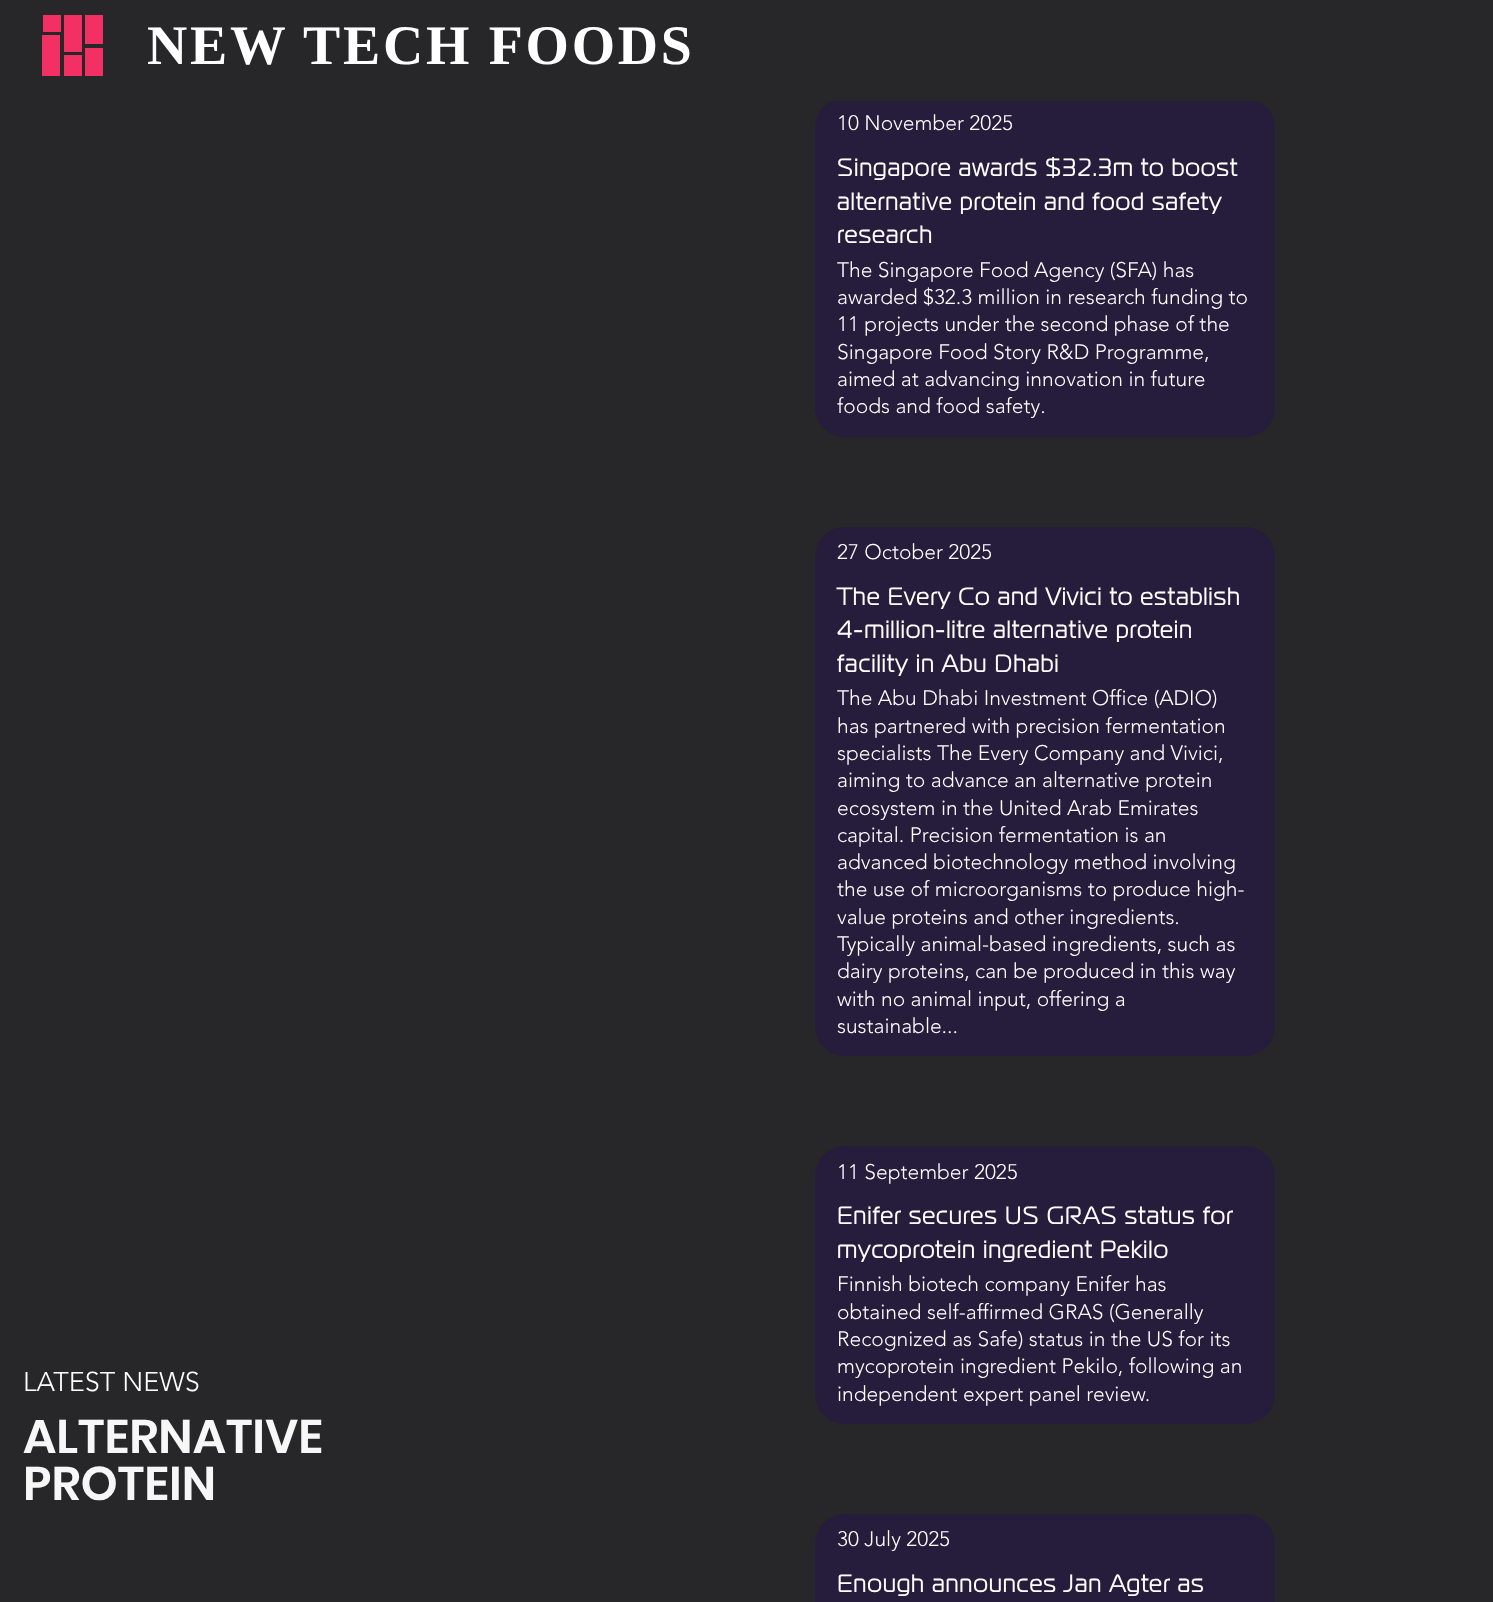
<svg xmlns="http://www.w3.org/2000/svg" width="1493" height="1602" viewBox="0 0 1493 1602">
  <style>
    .t1 { font: bold 55.75px Liberation Serif; letter-spacing: 2.75px; fill: #fff; }
    .t2 { font: 300 27px 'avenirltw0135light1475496'; fill: #fff; }
    .t3 { font: 600 47.25px Poppins; fill: #f7f7f7; }
    .t4 { font: 300 21px 'avenirltw0135light1475496'; fill: #fff; }
    .t5 { font: bold 24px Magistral; letter-spacing: 1.45px; fill: #fff; }
  </style>
  <rect width="100%" height="100%" fill="#272629"/>
  <rect x="43" y="15" width="18" height="17" fill="#f23064"/>
  <rect x="42" y="35" width="18" height="41" fill="#f23064"/>
  <rect x="64" y="15" width="18" height="37" fill="#f23064"/>
  <rect x="64" y="55" width="18" height="21" fill="#f23064"/>
  <rect x="85" y="15" width="18" height="29" fill="#f23064"/>
  <rect x="85" y="48" width="18" height="28" fill="#f23064"/>
  <text x="147" y="64" class="t1">NEW TECH FOODS</text>
  <rect x="815" y="98" width="460" height="339" rx="30" fill="#261c3c"/>
  <rect x="832" y="98" width="426" height="3" fill="#272629"/>
  <text x="23" y="1391" class="t2">LATEST NEWS</text>
  <text x="23" y="1453" class="t3">ALTERNATIVE</text>
  <text x="23" y="1500" class="t3">PROTEIN</text>
  <text x="837" y="130" class="t4">10 November 2025</text>
  <text x="837" y="176" class="t5">Singapore awards $32.3m to boost</text>
  <text x="837" y="210" class="t5">alternative protein and food safety</text>
  <text x="837" y="243" class="t5">research</text>
  <text x="837" y="277" class="t4">The Singapore Food Agency (SFA) has</text>
  <text x="837" y="304" class="t4">awarded $32.3 million in research funding to</text>
  <text x="837" y="331" class="t4">11 projects under the second phase of the</text>
  <text x="837" y="359" class="t4">Singapore Food Story R&amp;D Programme,</text>
  <text x="837" y="386" class="t4">aimed at advancing innovation in future</text>
  <text x="837" y="413" class="t4">foods and food safety.</text>
  <rect x="815" y="527" width="460" height="529" rx="30" fill="#261c3c"/>
  <text x="837" y="559" class="t4">27 October 2025</text>
  <text x="837" y="605" class="t5">The Every Co and Vivici to establish</text>
  <text x="837" y="638" class="t5">4-million-litre alternative protein</text>
  <text x="837" y="672" class="t5">facility in Abu Dhabi</text>
  <text x="837" y="705" class="t4">The Abu Dhabi Investment Office (ADIO)</text>
  <text x="837" y="733" class="t4">has partnered with precision fermentation</text>
  <text x="837" y="760" class="t4">specialists The Every Company and Vivici,</text>
  <text x="837" y="787" class="t4">aiming to advance an alternative protein</text>
  <text x="837" y="815" class="t4">ecosystem in the United Arab Emirates</text>
  <text x="837" y="842" class="t4">capital. Precision fermentation is an</text>
  <text x="837" y="869" class="t4">advanced biotechnology method involving</text>
  <text x="837" y="896" class="t4">the use of microorganisms to produce high-</text>
  <text x="837" y="924" class="t4">value proteins and other ingredients.</text>
  <text x="837" y="951" class="t4">Typically animal-based ingredients, such as</text>
  <text x="837" y="978" class="t4">dairy proteins, can be produced in this way</text>
  <text x="837" y="1006" class="t4">with no animal input, offering a</text>
  <text x="837" y="1033" class="t4">sustainable...</text>
  <rect x="815" y="1146" width="460" height="278" rx="30" fill="#261c3c"/>
  <text x="837" y="1179" class="t4">11 September 2025</text>
  <text x="837" y="1224" class="t5">Enifer secures US GRAS status for</text>
  <text x="837" y="1258" class="t5">mycoprotein ingredient Pekilo</text>
  <text x="837" y="1291" class="t4">Finnish biotech company Enifer has</text>
  <text x="837" y="1319" class="t4">obtained self-affirmed GRAS (Generally</text>
  <text x="837" y="1346" class="t4">Recognized as Safe) status in the US for its</text>
  <text x="837" y="1373" class="t4">mycoprotein ingredient Pekilo, following an</text>
  <text x="837" y="1401" class="t4">independent expert panel review.</text>
  <rect x="815" y="1514" width="460" height="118" rx="30" fill="#261c3c"/>
  <text x="837" y="1546" class="t4">30 July 2025</text>
  <text x="837" y="1592" class="t5">Enough announces Jan Agter as</text>
</svg>
